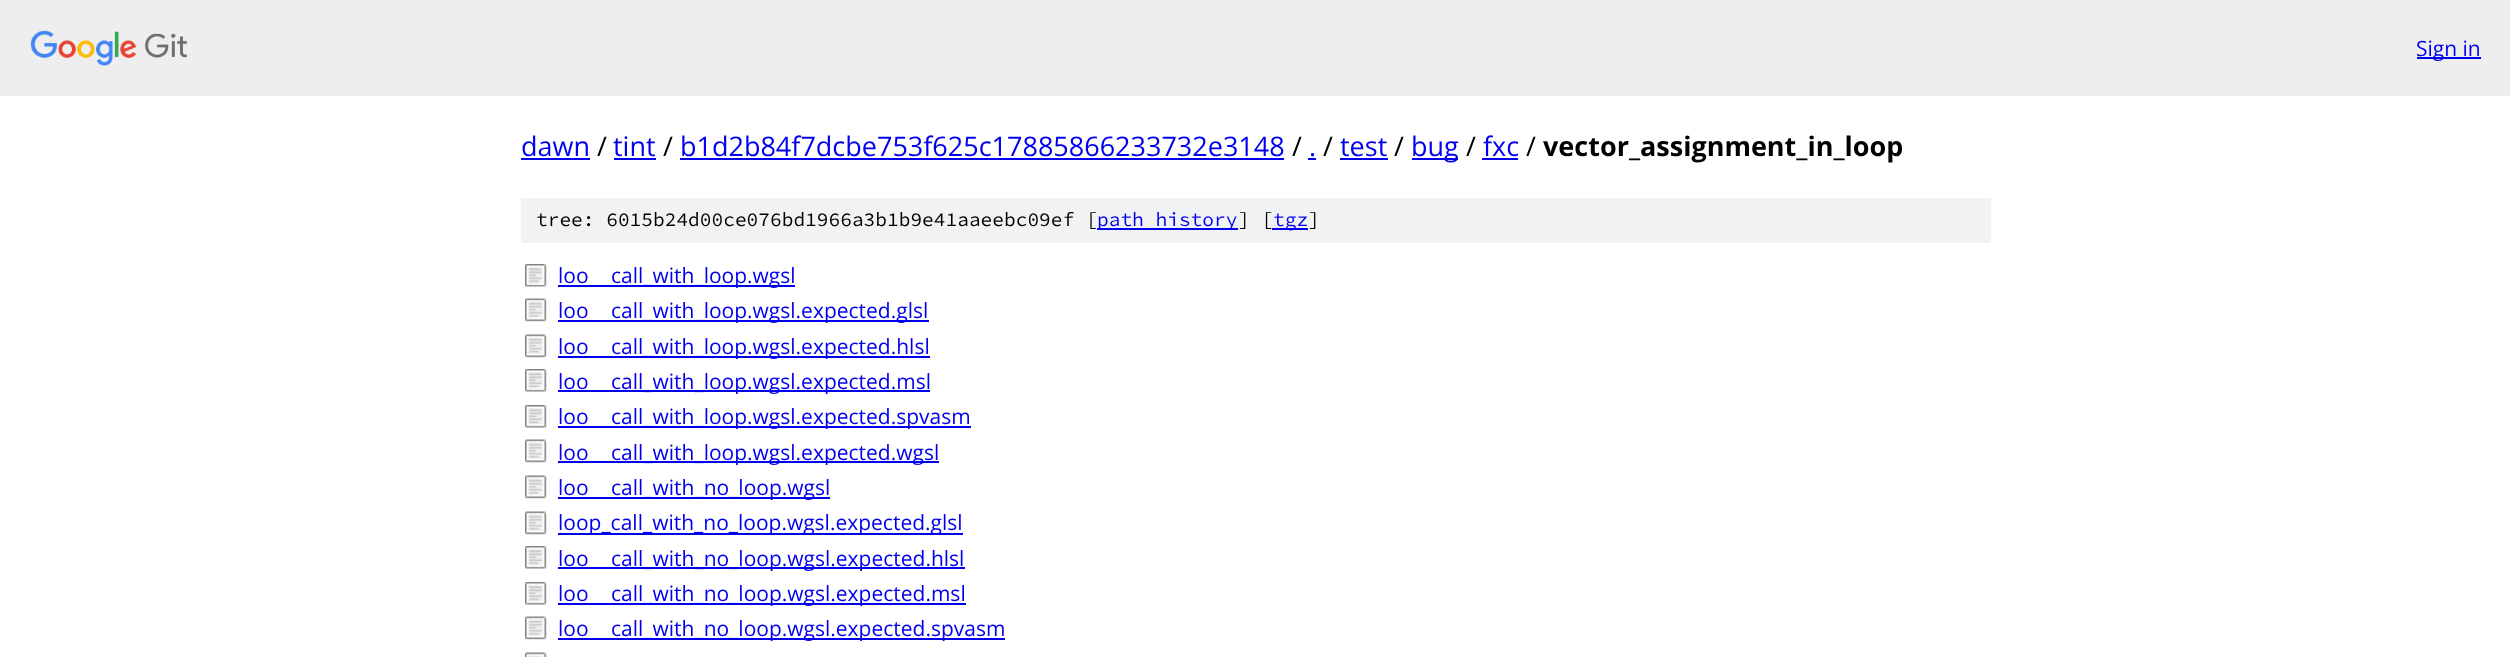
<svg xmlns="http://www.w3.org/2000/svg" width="2510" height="657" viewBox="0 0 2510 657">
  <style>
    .t1 { font: 21px Open Sans; fill: #00e; }
    .t2 { font: 27px Open Sans; fill: #00e; }
    .t3 { font: 27px Open Sans; fill: #000; }
    .t4 { font: bold 27px Open Sans; fill: #000; }
    .t5 { font: 200 19.5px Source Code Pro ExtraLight; fill: #000; }
    .t6 { font: 200 19.5px Source Code Pro ExtraLight; fill: #00e; }
  </style>
  <rect width="100%" height="100%" fill="#fff"/>
  <rect x="0" y="0" width="2510" height="96" fill="#eee"/>
  <image x="30" y="30" width="157" height="36" href="images/1.png"/>
  <rect x="2417" y="57" width="64" height="2" fill="#00e"/>
  <text x="2416" y="56" class="t1">Sign in</text>
  <text x="521" y="156" class="t2">dawn</text>
  <rect x="521" y="158" width="69" height="2" fill="#00e"/>
  <text x="597" y="156" class="t3">/</text>
  <text x="613" y="156" class="t2">tint</text>
  <rect x="614" y="158" width="42" height="2" fill="#00e"/>
  <text x="663" y="156" class="t3">/</text>
  <text x="680" y="156" class="t2">b1d2b84f7dcbe753f625c17885866233732e3148</text>
  <rect x="680" y="158" width="604" height="2" fill="#00e"/>
  <text x="1292" y="156" class="t3">/</text>
  <text x="1309" y="156" class="t2">.</text>
  <rect x="1308" y="158" width="8" height="2" fill="#00e"/>
  <text x="1323" y="156" class="t3">/</text>
  <text x="1340" y="156" class="t2">test</text>
  <rect x="1340" y="158" width="48" height="2" fill="#00e"/>
  <text x="1394" y="156" class="t3">/</text>
  <rect x="1412" y="158" width="46" height="2" fill="#00e"/>
  <text x="1411" y="156" class="t2">bug</text>
  <text x="1466" y="156" class="t3">/</text>
  <text x="1483" y="156" class="t2">fxc</text>
  <rect x="1482" y="158" width="36" height="2" fill="#00e"/>
  <text x="1526" y="156" class="t3">/</text>
  <text x="1543" y="156" class="t4">vector_assignment_in_loop</text>
  <rect x="521" y="198" width="1470" height="45" fill="#f1f2f3"/>
  <text x="536" y="226" class="t5">tree: 6015b24d00ce076bd1966a3b1b9e41aaeebc09ef [</text>
  <rect x="1097" y="228" width="141" height="2" fill="#00e"/>
  <text x="1097" y="226" class="t6">path history</text>
  <text x="1238" y="226" class="t5">] [</text>
  <rect x="1272" y="228" width="36" height="2" fill="#00e"/>
  <text x="1273" y="226" class="t6">tgz</text>
  <text x="1308" y="226" class="t5">]</text>
  <image x="525" y="264" width="22" height="23" href="images/2.png"/>
  <text x="558" y="283" class="t1">loo</text>
  <rect x="558" y="285" width="237" height="2" fill="#00e"/>
  <text x="611" y="283" class="t1">call_with_loop.wgsl</text>
  <image x="525" y="298" width="22" height="24" href="images/3.png"/>
  <text x="558" y="318" class="t1">loo</text>
  <rect x="558" y="320" width="371" height="2" fill="#00e"/>
  <text x="611" y="318" class="t1">call_with_loop.wgsl.expected.glsl</text>
  <image x="525" y="334" width="22" height="24" href="images/3.png"/>
  <text x="558" y="354" class="t1">loo</text>
  <rect x="558" y="356" width="372" height="2" fill="#00e"/>
  <text x="611" y="354" class="t1">call_with_loop.wgsl.expected.hlsl</text>
  <image x="525" y="369" width="22" height="23" href="images/2.png"/>
  <text x="558" y="389" class="t1">loo</text>
  <rect x="558" y="390" width="372" height="2" fill="#00e"/>
  <text x="611" y="389" class="t1">call_with_loop.wgsl.expected.msl</text>
  <image x="525" y="405" width="22" height="23" href="images/2.png"/>
  <text x="558" y="424" class="t1">loo</text>
  <rect x="558" y="426" width="413" height="2" fill="#00e"/>
  <text x="611" y="424" class="t1">call_with_loop.wgsl.expected.spvasm</text>
  <image x="525" y="439" width="22" height="24" href="images/3.png"/>
  <text x="558" y="460" class="t1">loo</text>
  <rect x="558" y="461" width="381" height="2" fill="#00e"/>
  <text x="611" y="460" class="t1">call_with_loop.wgsl.expected.wgsl</text>
  <image x="525" y="475" width="22" height="24" href="images/3.png"/>
  <text x="558" y="495" class="t1">loo</text>
  <rect x="558" y="497" width="272" height="2" fill="#00e"/>
  <text x="611" y="495" class="t1">call_with_no_loop.wgsl</text>
  <image x="525" y="511" width="22" height="24" href="images/3.png"/>
  <rect x="558" y="533" width="405" height="2" fill="#00e"/>
  <text x="558" y="530" class="t1">loop_call_with_no_loop.wgsl.expected.glsl</text>
  <image x="525" y="546" width="22" height="23" href="images/2.png"/>
  <text x="558" y="566" class="t1">loo</text>
  <rect x="558" y="567" width="407" height="2" fill="#00e"/>
  <text x="611" y="566" class="t1">call_with_no_loop.wgsl.expected.hlsl</text>
  <image x="525" y="582" width="22" height="23" href="images/2.png"/>
  <text x="558" y="601" class="t1">loo</text>
  <rect x="558" y="603" width="408" height="2" fill="#00e"/>
  <text x="611" y="601" class="t1">call_with_no_loop.wgsl.expected.msl</text>
  <image x="525" y="616" width="22" height="24" href="images/3.png"/>
  <text x="558" y="636" class="t1">loo</text>
  <rect x="558" y="638" width="447" height="2" fill="#00e"/>
  <text x="611" y="636" class="t1">call_with_no_loop.wgsl.expected.spvasm</text>
  <image x="525" y="652" width="22" height="5" href="images/4.png"/>
</svg>
